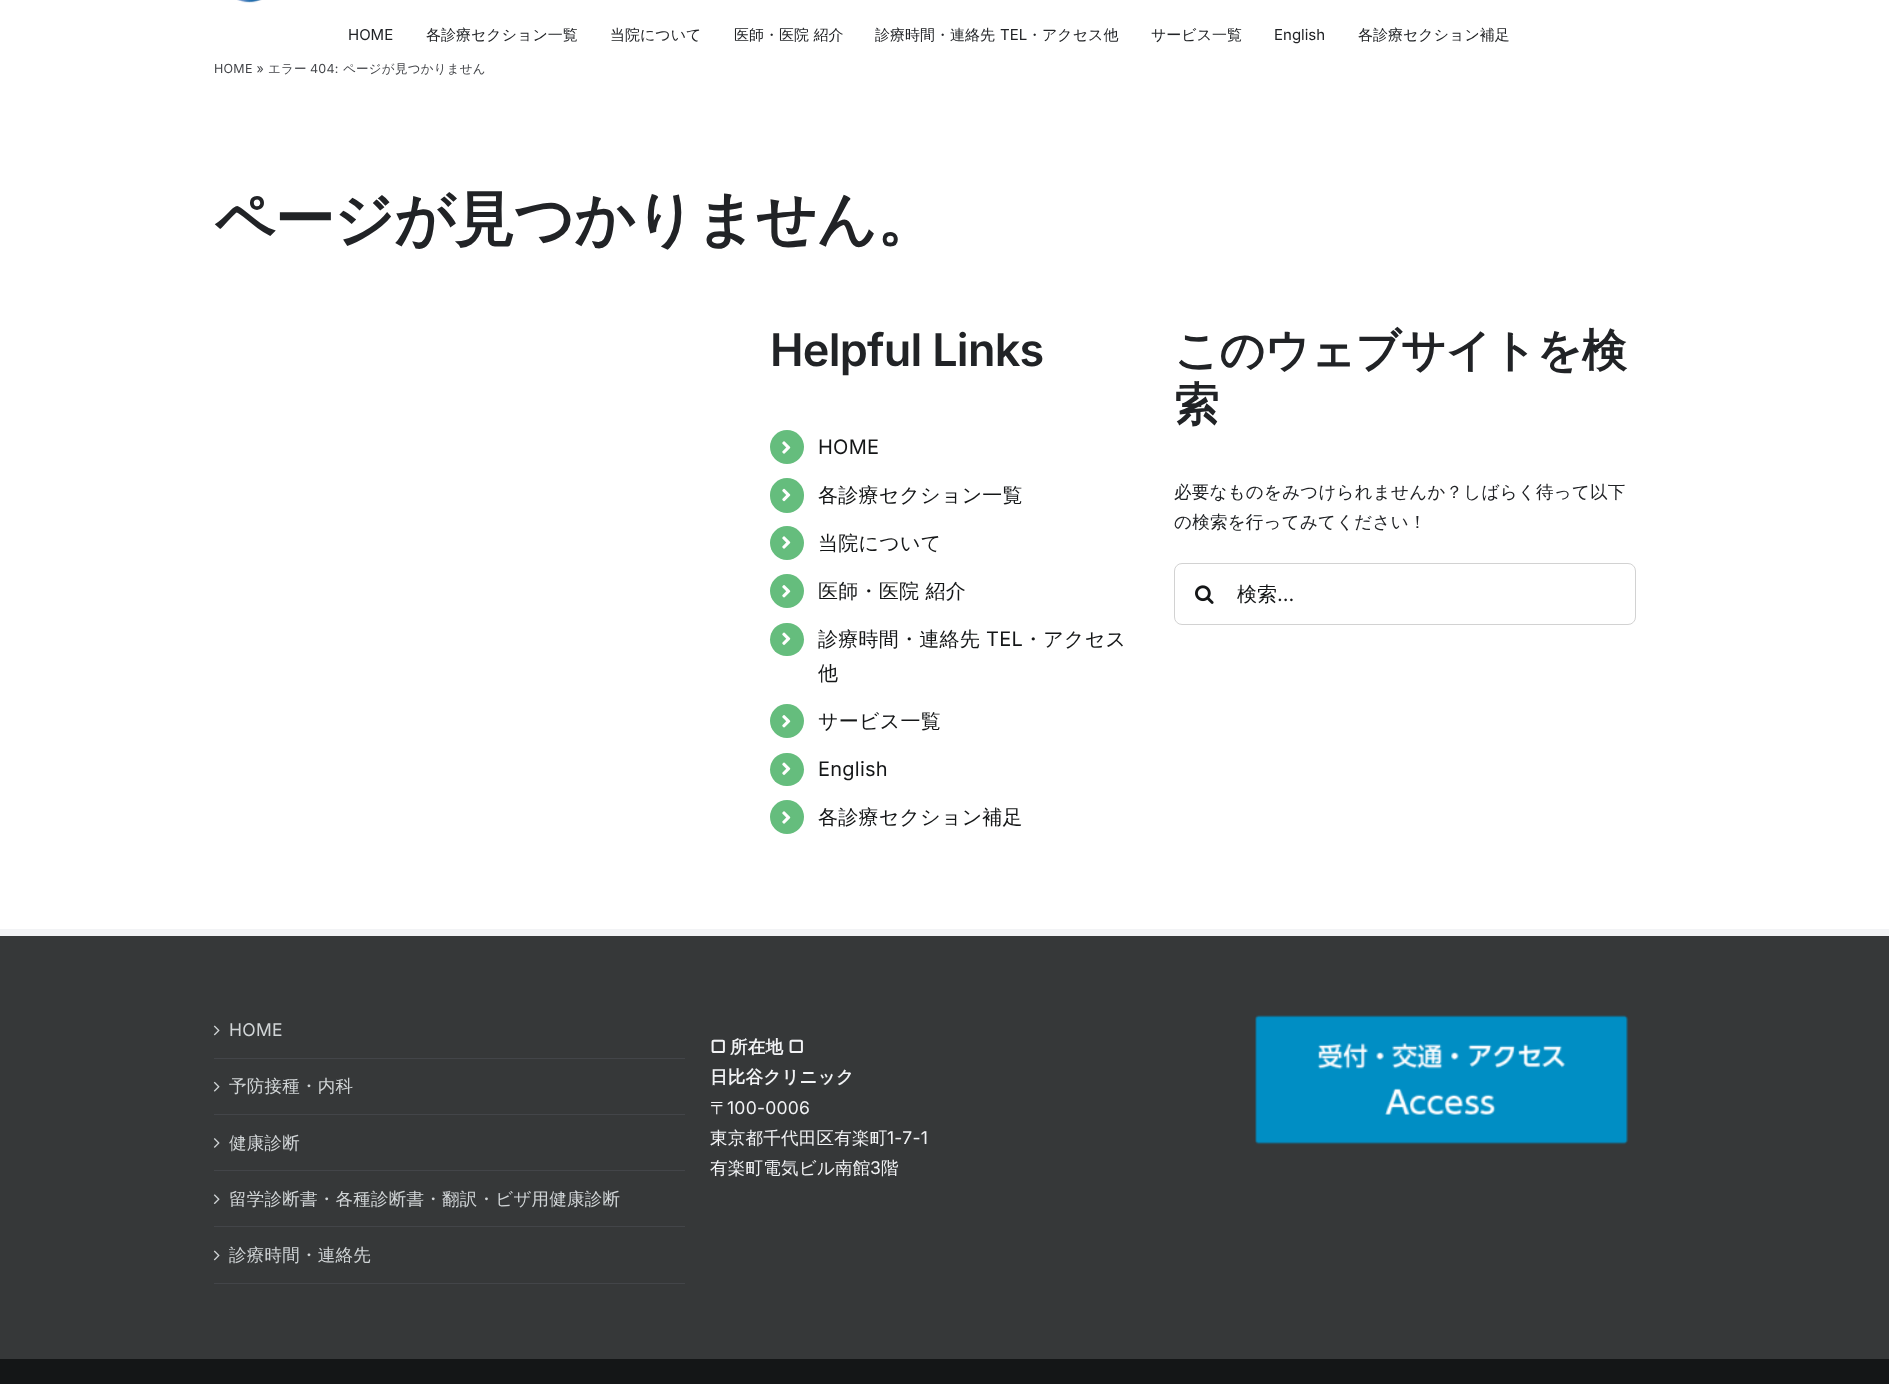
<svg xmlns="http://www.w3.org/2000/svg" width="1889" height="1384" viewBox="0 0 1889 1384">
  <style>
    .t1 { font: 15px Inter; fill: #212326; }
    .t2 { font: 500 15px WenQuanYi Zen Hei; fill: #212326; }
    .t3 { font: 12.5px Inter; letter-spacing: 0.25px; fill: #434549; }
    .t4 { font: 500 12.5px WenQuanYi Zen Hei; letter-spacing: 0.25px; fill: #434549; }
    .t5 { font: bold 60px WenQuanYi Zen Hei; letter-spacing: -0.9px; fill: #212326; }
    .t6 { font: 600 45px Inter; letter-spacing: -0.75px; fill: #212326; }
    .t7 { font: 20px Inter; letter-spacing: 0.25px; fill: #141617; }
    .t8 { font: 500 20px WenQuanYi Zen Hei; letter-spacing: 0.25px; fill: #141617; }
    .t9 { font: bold 45px WenQuanYi Zen Hei; letter-spacing: -0.75px; fill: #212326; }
    .t10 { font: 500 17.5px WenQuanYi Zen Hei; letter-spacing: 0.25px; fill: #212326; }
    .t11 { font: 500 20px WenQuanYi Zen Hei; fill: #141617; }
    .t12 { font: 20px Inter; fill: #141617; }
    .t13 { font: 17.5px Inter; letter-spacing: 0.25px; fill: #d1d5d7; }
    .t14 { font: 500 17.5px WenQuanYi Zen Hei; letter-spacing: 0.25px; fill: #d1d5d7; }
    .t15 { font: bold 17.5px Inter; letter-spacing: 0.25px; fill: #f2f3f5; }
    .t16 { font: bold 17.5px WenQuanYi Zen Hei; letter-spacing: 0.25px; fill: #f2f3f5; }
    .t17 { font: 500 17.5px WenQuanYi Zen Hei; letter-spacing: 0.25px; fill: #f2f3f5; }
    .t18 { font: 17.5px Inter; letter-spacing: 0.25px; fill: #f2f3f5; }
  </style>
  <rect width="100%" height="100%" fill="#fff"/>
  <image x="237" y="0" width="25" height="3" href="images/1.png"/>
  <text x="348" y="40" class="t1">HOME</text>
  <text x="426" y="40" class="t2">各診療セクション一覧</text>
  <text x="610" y="40" class="t2">当院について</text>
  <text x="734" y="40" class="t2">医師・医院 紹介</text>
  <text x="875" y="40" class="t2">診療時間・連絡先</text>
  <text x="1000" y="40" class="t1">TEL</text>
  <text x="1027" y="40" class="t2">・アクセス他</text>
  <text x="1151" y="40" class="t2">サービス一覧</text>
  <text x="1274" y="40" class="t1">English</text>
  <text x="1358" y="40" class="t2">各診療セクション補足</text>
  <text x="214" y="73" class="t3">HOME »</text>
  <text x="268" y="73" class="t4">エラー</text>
  <text x="310" y="73" class="t3">404:</text>
  <text x="343" y="73" class="t4">ページが見つかりません</text>
  <text x="214" y="240" class="t5">ページが見つかりません。</text>
  <text x="770" y="366" class="t6">Helpful Links</text>
  <circle cx="787" cy="447" r="17" fill="#65bd7d"/>
  <image x="782" y="441" width="9" height="13" href="images/2.png"/>
  <text x="818" y="454" class="t7">HOME</text>
  <rect x="770" y="478" width="34" height="35" rx="17" fill="#65bd7d"/>
  <image x="782" y="488" width="9" height="14" href="images/3.png"/>
  <text x="818" y="502" class="t8">各診療セクション一覧</text>
  <circle cx="787" cy="543" r="17" fill="#65bd7d"/>
  <image x="782" y="536" width="9" height="13" href="images/2.png"/>
  <text x="818" y="550" class="t8">当院について</text>
  <circle cx="787" cy="591" r="17" fill="#65bd7d"/>
  <image x="782" y="585" width="9" height="13" href="images/4.png"/>
  <text x="818" y="598" class="t8">医師・医院 紹介</text>
  <rect x="770" y="623" width="34" height="33" rx="16.5" fill="#65bd7d"/>
  <image x="782" y="632" width="9" height="13" href="images/5.png"/>
  <text x="818" y="646" class="t8">診療時間・連絡先</text>
  <text x="986" y="646" class="t7">TEL</text>
  <text x="1023" y="646" class="t8">・アクセス</text>
  <text x="818" y="680" class="t8">他</text>
  <circle cx="787" cy="721" r="17" fill="#65bd7d"/>
  <image x="782" y="715" width="9" height="13" href="images/4.png"/>
  <text x="818" y="728" class="t8">サービス一覧</text>
  <rect x="770" y="753" width="34" height="33" rx="16.5" fill="#65bd7d"/>
  <image x="782" y="762" width="9" height="13" href="images/5.png"/>
  <text x="818" y="776" class="t7">English</text>
  <circle cx="787" cy="817" r="17" fill="#65bd7d"/>
  <image x="782" y="811" width="9" height="13" href="images/2.png"/>
  <text x="818" y="824" class="t8">各診療セクション補足</text>
  <text x="1174" y="366" class="t9">このウェブサイトを検</text>
  <text x="1174" y="420" class="t9">索</text>
  <text x="1174" y="498" class="t10">必要なものをみつけられませんか？しばらく待って以下</text>
  <text x="1174" y="528" class="t10">の検索を行ってみてください！</text>
  <rect x="1174.5" y="563.5" width="461" height="61" rx="7.5" fill="none" stroke="#d2d2d2"/>
  <image x="1195" y="585" width="19" height="19" href="images/6.png"/>
  <text x="1237" y="601" class="t11">検索</text>
  <text x="1277" y="601" class="t12">...</text>
  <rect x="0" y="936" width="1889" height="423" fill="#363839"/>
  <rect x="0" y="929" width="1889" height="7" fill="#f2f3f5"/>
  <rect x="214" y="1058" width="471" height="1" fill="#434549"/>
  <image x="213" y="1025" width="7" height="11" href="images/7.png"/>
  <text x="229" y="1036" class="t13">HOME</text>
  <rect x="214" y="1114" width="471" height="1" fill="#434549"/>
  <image x="213" y="1081" width="7" height="11" href="images/8.png"/>
  <text x="229" y="1092" class="t14">予防接種・内科</text>
  <rect x="214" y="1170" width="471" height="1" fill="#434549"/>
  <image x="213" y="1138" width="7" height="10" href="images/9.png"/>
  <text x="229" y="1149" class="t14">健康診断</text>
  <rect x="214" y="1226" width="471" height="1" fill="#434549"/>
  <image x="213" y="1194" width="7" height="10" href="images/10.png"/>
  <text x="229" y="1205" class="t14">留学診断書・各種診断書・翻訳・ビザ用健康診断</text>
  <rect x="214" y="1283" width="471" height="1" fill="#434549"/>
  <image x="213" y="1250" width="7" height="11" href="images/7.png"/>
  <text x="229" y="1261" class="t14">診療時間・連絡先</text>
  <text x="710" y="1053" class="t15">▢</text>
  <text x="730" y="1053" class="t16">所在地</text>
  <text x="788" y="1053" class="t15">▢</text>
  <text x="710" y="1083" class="t16">日比谷クリニック</text>
  <text x="710" y="1114" class="t17">〒</text>
  <text x="727" y="1114" class="t18">100-0006</text>
  <text x="710" y="1144" class="t17">東京都千代田区有楽町</text>
  <text x="887" y="1144" class="t18">1-7-1</text>
  <text x="710" y="1174" class="t17">有楽町電気ビル南館</text>
  <text x="870" y="1174" class="t18">3</text>
  <text x="881" y="1174" class="t17">階</text>
  <image x="1255" y="1015" width="374" height="130" href="images/11.png"/>
  <rect x="0" y="1359" width="1889" height="25" fill="#141617"/>
</svg>
